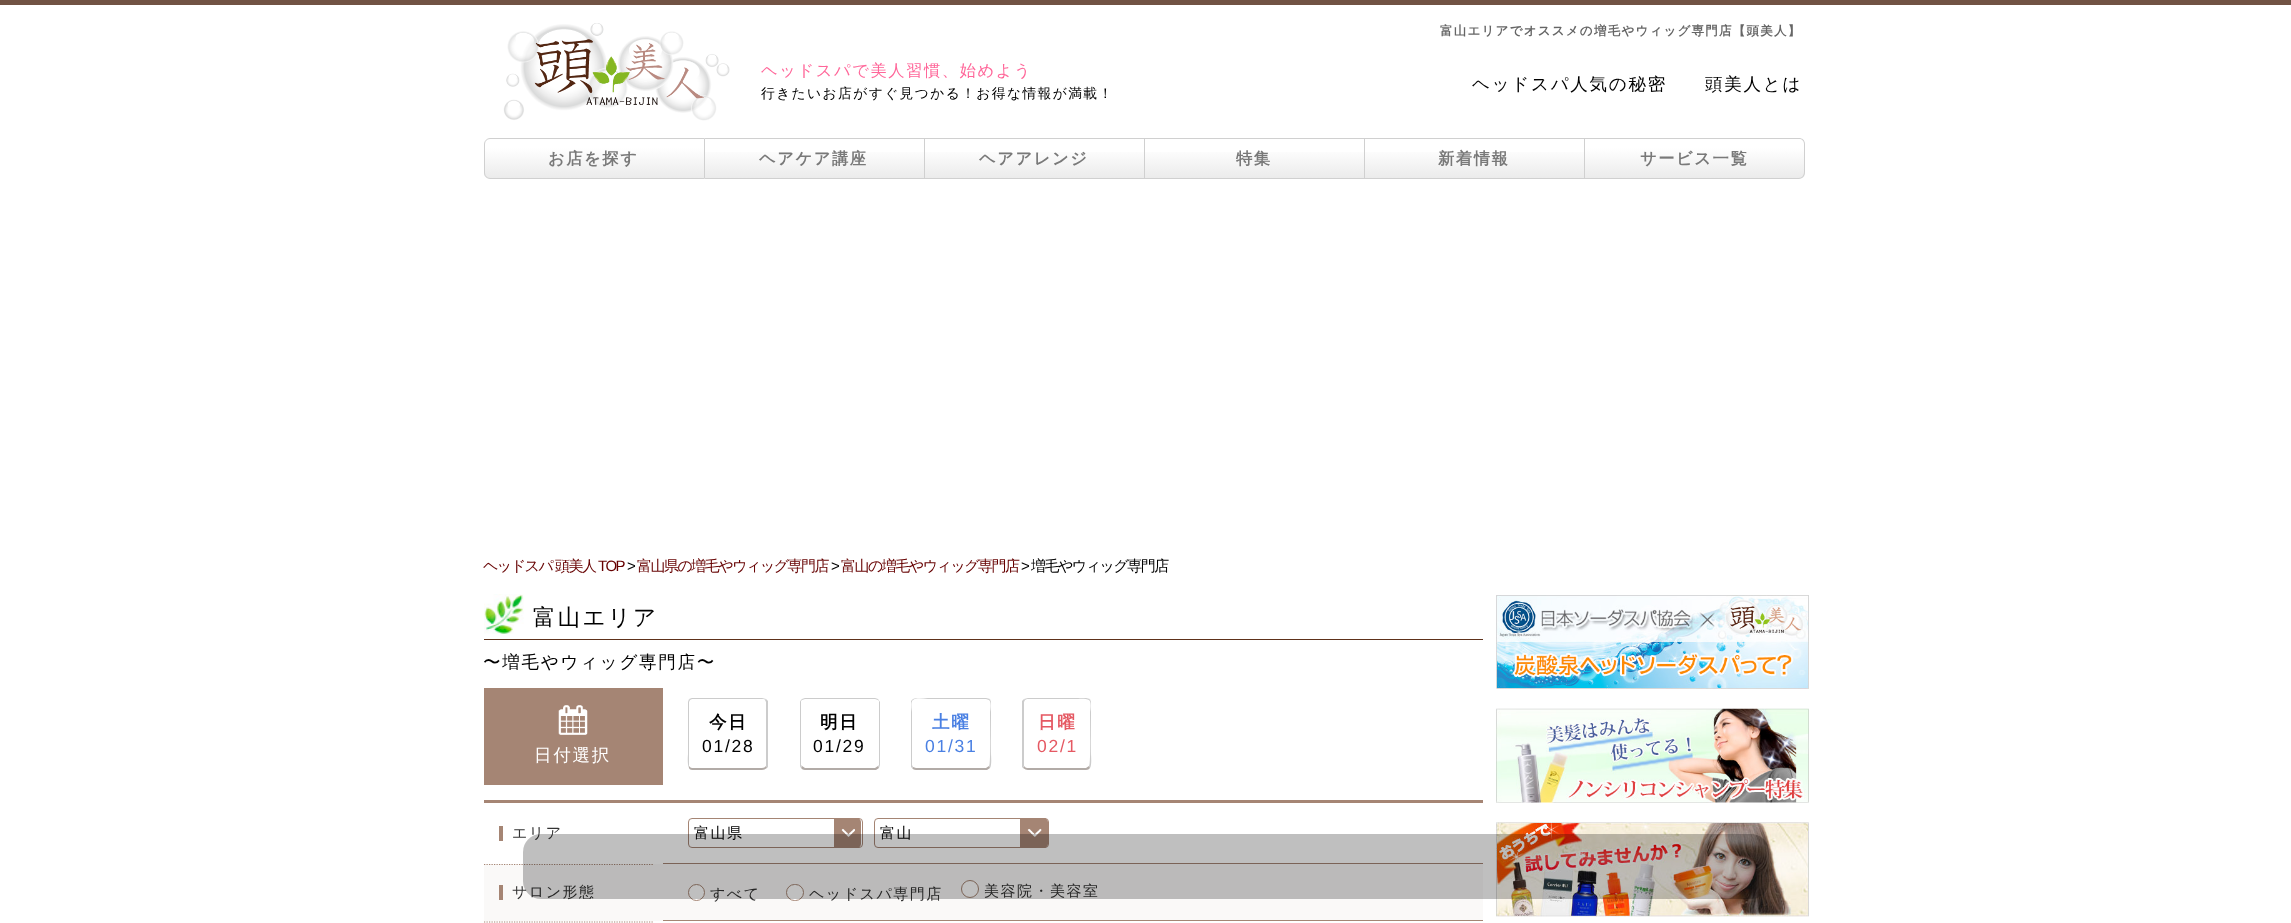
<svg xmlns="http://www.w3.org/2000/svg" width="2291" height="923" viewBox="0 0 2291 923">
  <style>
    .t1 { font: bold 12.5px WenQuanYi Zen Hei; letter-spacing: 1.25px; fill: #666; }
    .t2 { font: 500 16.25px WenQuanYi Zen Hei; letter-spacing: 1.6px; fill: #f69; }
    .t3 { font: 500 13.75px WenQuanYi Zen Hei; letter-spacing: 1.4px; fill: #000; }
    .t4 { font: 500 17.5px WenQuanYi Zen Hei; letter-spacing: 1.75px; fill: #000; }
    .t5 { font: bold 16.25px WenQuanYi Zen Hei; letter-spacing: 1.6px; fill: #797979; }
    .t6 { font: 500 15px WenQuanYi Zen Hei; letter-spacing: -1.5px; fill: #600; }
    .t7 { font: 15px Liberation Sans; letter-spacing: -1.5px; fill: #600; }
    .t8 { font: 15px Liberation Sans; letter-spacing: -1.5px; fill: #000; }
    .t9 { font: 500 15px WenQuanYi Zen Hei; letter-spacing: -1.5px; fill: #000; }
    .t10 { font: 500 22.5px WenQuanYi Zen Hei; letter-spacing: 2.25px; fill: #000; }
    .t11 { font: bold 17.5px WenQuanYi Zen Hei; letter-spacing: 1.75px; fill: #000; }
    .t12 { font: 17.5px Liberation Sans; letter-spacing: 1.75px; fill: #000; }
    .t13 { font: bold 17.5px WenQuanYi Zen Hei; letter-spacing: 1.75px; fill: #4a80e3; }
    .t14 { font: 17.5px Liberation Sans; letter-spacing: 1.75px; fill: #4a80e3; }
    .t15 { font: bold 17.5px WenQuanYi Zen Hei; letter-spacing: 1.75px; fill: #e55963; }
    .t16 { font: 17.5px Liberation Sans; letter-spacing: 1.75px; fill: #e55963; }
    .t17 { font: 500 17.5px WenQuanYi Zen Hei; letter-spacing: 1.75px; fill: #fff; }
    .t18 { font: 500 15px WenQuanYi Zen Hei; letter-spacing: 1.5px; fill: #333; }
    .t19 { font: 500 15px WenQuanYi Zen Hei; letter-spacing: 1.5px; fill: #000; }
  </style>
  <defs>
    <clipPath id="clip1"><path d="M490 138H705V179H490C486.5 179 484 176.5 484 173V144C484 140.5 486.5 138 490 138Z"/></clipPath>
    <linearGradient id="g1" gradientUnits="userSpaceOnUse" x1="594" y1="139" x2="594" y2="178"><stop offset="0.23" stop-color="#fff"/><stop offset="1" stop-color="#ebebeb"/></linearGradient>
    <linearGradient id="g2" gradientUnits="userSpaceOnUse" x1="814" y1="139" x2="814" y2="178"><stop offset="0.23" stop-color="#fff"/><stop offset="1" stop-color="#ebebeb"/></linearGradient>
    <linearGradient id="g3" gradientUnits="userSpaceOnUse" x1="1034" y1="139" x2="1034" y2="178"><stop offset="0.23" stop-color="#fff"/><stop offset="1" stop-color="#ebebeb"/></linearGradient>
    <linearGradient id="g4" gradientUnits="userSpaceOnUse" x1="1254" y1="139" x2="1254" y2="178"><stop offset="0.23" stop-color="#fff"/><stop offset="1" stop-color="#ebebeb"/></linearGradient>
    <linearGradient id="g5" gradientUnits="userSpaceOnUse" x1="1474" y1="139" x2="1474" y2="178"><stop offset="0.23" stop-color="#fff"/><stop offset="1" stop-color="#ebebeb"/></linearGradient>
    <clipPath id="clip2"><path d="M1585 138H1799C1802.5 138 1805 140.5 1805 144V173C1805 176.5 1802.5 179 1799 179H1585Z"/></clipPath>
    <linearGradient id="g6" gradientUnits="userSpaceOnUse" x1="1694" y1="139" x2="1694" y2="178"><stop offset="0.23" stop-color="#fff"/><stop offset="1" stop-color="#ebebeb"/></linearGradient>
  </defs>
  <rect width="100%" height="100%" fill="#fff"/>
  <rect x="0" y="0" width="2291" height="5" fill="#715344"/>
  <image x="503" y="23" width="227" height="98" href="images/1.png"/>
  <text x="1440" y="35" class="t1">富山エリアでオススメの増毛やウィッグ専門店【頭美人】</text>
  <text x="761" y="76" class="t2">ヘッドスパで美人習慣、始めよう</text>
  <text x="761" y="98" class="t3">行きたいお店がすぐ見つかる！お得な情報が満載！</text>
  <text x="1472" y="90" class="t4">ヘッドスパ人気の秘密</text>
  <text x="1705" y="90" class="t4">頭美人とは</text>
  <g clip-path="url(#clip1)">
    <rect x="484" y="139" width="220" height="39" fill="url(#g1)"/>
  </g>
  <path d="M490 138.5H704.5V178.5H490C487 178.5 484.5 176 484.5 173V144C484.5 141 487 138.5 490 138.5Z" fill="none" stroke="#d0d0d0"/>
  <text x="548" y="164" class="t5">お店を探す</text>
  <rect x="705" y="152" width="219" height="26" fill="url(#g2)"/>
  <rect x="705" y="138" width="880" height="1" fill="#d0d0d0"/>
  <rect x="924" y="138" width="1" height="41" fill="#d0d0d0"/>
  <rect x="705" y="178" width="220" height="1" fill="#d0d0d0"/>
  <text x="759" y="164" class="t5">ヘアケア講座</text>
  <rect x="925" y="152" width="219" height="26" fill="url(#g3)"/>
  <rect x="1144" y="138" width="1" height="41" fill="#d0d0d0"/>
  <rect x="925" y="178" width="220" height="1" fill="#d0d0d0"/>
  <text x="979" y="164" class="t5">ヘアアレンジ</text>
  <rect x="1145" y="152" width="219" height="26" fill="url(#g4)"/>
  <rect x="1364" y="138" width="1" height="41" fill="#d0d0d0"/>
  <rect x="1145" y="178" width="220" height="1" fill="#d0d0d0"/>
  <text x="1236" y="164" class="t5">特集</text>
  <rect x="1365" y="152" width="219" height="26" fill="url(#g5)"/>
  <rect x="1584" y="138" width="1" height="41" fill="#d0d0d0"/>
  <rect x="1365" y="178" width="220" height="1" fill="#d0d0d0"/>
  <text x="1438" y="164" class="t5">新着情報</text>
  <g clip-path="url(#clip2)">
    <rect x="1585" y="139" width="220" height="39" fill="url(#g6)"/>
  </g>
  <path d="M1585 138H1799C1802 138 1805 140 1805 144V172C1805 176 1802 179 1799 179H1585ZM1585 139H1799C1802 139 1804 141 1804 144V172C1804 175 1802 178 1799 178H1585Z" fill="#d0d0d0" fill-rule="evenodd"/>
  <text x="1640" y="164" class="t5">サービス一覧</text>
  <text x="483" y="571" class="t6">ヘッドスパ</text>
  <text x="555" y="571" class="t6">頭美人</text>
  <text x="598" y="571" class="t7">TOP</text>
  <text x="627" y="571" class="t8">&gt;</text>
  <text x="637" y="571" class="t6">富山県の増毛やウィッグ専門店</text>
  <text x="831" y="571" class="t8">&gt;</text>
  <text x="841" y="571" class="t6">富山の増毛やウィッグ専門店</text>
  <text x="1021" y="571" class="t8">&gt;</text>
  <text x="1031" y="571" class="t9">増毛やウィッグ専門店</text>
  <rect x="484" y="639" width="999" height="1" fill="#5e311a"/>
  <image x="484" y="594" width="40" height="40" href="images/2.png"/>
  <text x="533" y="625" class="t10">富山エリア</text>
  <text x="483" y="668" class="t4">〜増毛やウィッグ専門店〜</text>
  <path d="M692 698L689 699L690 700L692 699H762C764 699 765 699 765 700L766 699L762 698Z" fill="#ccc"/>
  <path d="M768 767L767 768L766 766V702L765 700L766 699L768 701Z" fill="#ccc"/>
  <path d="M692 770H762C764 770 765 769 767 768L766 766C765 767 764 768 762 768H692C691 768 690 767 689 766V768C689 769 691 770 692 770Z" fill="#b2aba7"/>
  <path d="M689 699L688 702V754C688 755 687 764 689 768V766V702L690 700Z" fill="#ccc"/>
  <text x="709" y="728" class="t11">今日</text>
  <text x="702" y="752" class="t12">01/28</text>
  <path d="M805 698L802 699V700L805 699H875L878 700V699L875 698Z" fill="#ccc"/>
  <path d="M880 765V702L878 699V700L879 701V765L878 766L879 768Z" fill="#ccc"/>
  <path d="M805 770H876L879 768L878 766L875 768H805L802 766L801 768C802 769 803 770 805 770Z" fill="#b2aba7"/>
  <path d="M800 702V765C800 766 800 767 801 768L802 766L801 765V701L802 700V699C801 700 800 701 800 702Z" fill="#ccc"/>
  <text x="820" y="728" class="t11">明日</text>
  <text x="813" y="752" class="t12">01/29</text>
  <path d="M916 698L913 699V700C918 697 923 699 928 699H986L989 700L990 699L986 698Z" fill="#ccc"/>
  <path d="M990 768C992 765 991 755 991 754V702L990 699L989 700C992 702 990 712 990 712C990 719 991 764 989 766Z" fill="#ccc"/>
  <path d="M916 770H987L990 768L989 766L986 768H916L913 767L912 768C913 769 914 770 916 770Z" fill="#b2aba7"/>
  <path d="M911 701L913 699V700C910 702 912 710 912 712V765L913 767L912 768L911 767Z" fill="#ccc"/>
  <text x="932" y="728" class="t13">土曜</text>
  <text x="925" y="752" class="t14">01/31</text>
  <path d="M1028 698L1024 699L1025 700L1027 699H1076C1077 699 1086 698 1089 700L1090 699L1086 698Z" fill="#ccc"/>
  <path d="M1090 768C1092 765 1091 755 1091 754V702L1090 699L1089 700C1092 702 1090 712 1090 712C1090 719 1091 764 1089 766Z" fill="#ccc"/>
  <path d="M1028 770H1086C1088 770 1089 769 1090 768L1089 766L1086 768H1027C1026 768 1025 767 1024 766L1023 768C1025 769 1026 770 1028 770Z" fill="#b2aba7"/>
  <path d="M1022 701L1024 699L1025 700L1024 702V766L1023 768L1022 767Z" fill="#ccc"/>
  <text x="1038" y="728" class="t15">日曜</text>
  <text x="1037" y="752" class="t16">02/1</text>
  <rect x="484" y="688" width="179" height="97" fill="#a58574"/>
  <image x="558" y="705" width="30" height="30" href="images/3.png"/>
  <text x="534" y="761" class="t17">日付選択</text>
  <rect x="484" y="800" width="999" height="3" fill="#a58574"/>
  <rect x="499" y="826" width="4" height="15" fill="#a58574"/>
  <text x="512" y="838" class="t18">エリア</text>
  <rect x="484" y="864" width="179" height="57" fill="#faf9f8"/>
  <path d="M484 864.5H654" fill="none" stroke="#a58574" stroke-width="1.2" stroke-dasharray="1.25 1.25"/>
  <path d="M834 818H857C859 818 861 820 861 822V844C861 846 859 848 857 848H834Z" fill="#a58574"/>
  <image x="841" y="828" width="14" height="9" href="images/4.png"/>
  <rect x="688.5" y="818.5" width="174" height="29" rx="3.5" fill="none" stroke="#a58574"/>
  <text x="694" y="838" class="t19">富山県</text>
  <path d="M1020 818H1044C1046 818 1048 820 1048 822V844C1048 846 1046 848 1044 848H1020Z" fill="#a58574"/>
  <image x="1027" y="828" width="15" height="9" href="images/5.png"/>
  <rect x="874.5" y="818.5" width="174" height="29" rx="3.5" fill="none" stroke="#a58574"/>
  <text x="880" y="838" class="t19">富山</text>
  <rect x="499" y="885" width="4" height="15" fill="#a58574"/>
  <text x="512" y="897" class="t18">サロン形態</text>
  <path d="M484 922H654" fill="none" stroke="#a58574" stroke-width="1.2" stroke-dasharray="1.25 1.25"/>
  <rect x="663" y="864" width="820" height="56" fill="#faf9f8"/>
  <rect x="663" y="863" width="820" height="1" fill="#a58574"/>
  <circle cx="696.5" cy="892.5" r="8" fill="#fff" stroke="#a58574"/>
  <text x="710" y="899" class="t18">すべて</text>
  <rect x="786.5" y="884.5" width="17" height="16" rx="8" fill="#fff" stroke="#a58574"/>
  <text x="809" y="899" class="t18">ヘッドスパ専門店</text>
  <circle cx="970" cy="889" r="8.5" fill="#fff" stroke="#a58574"/>
  <text x="984" y="896" class="t18">美容院・美容室</text>
  <rect x="663" y="920" width="820" height="1" fill="#a58574"/>
  <image x="1496" y="822" width="313" height="95" href="images/8.png"/>
  <rect x="523" y="834" width="1246" height="65" rx="18" fill="#00000040"/>
  <image x="1496" y="595" width="313" height="94" href="images/6.png"/>
  <image x="1496" y="708" width="313" height="95" href="images/7.png"/>
</svg>
